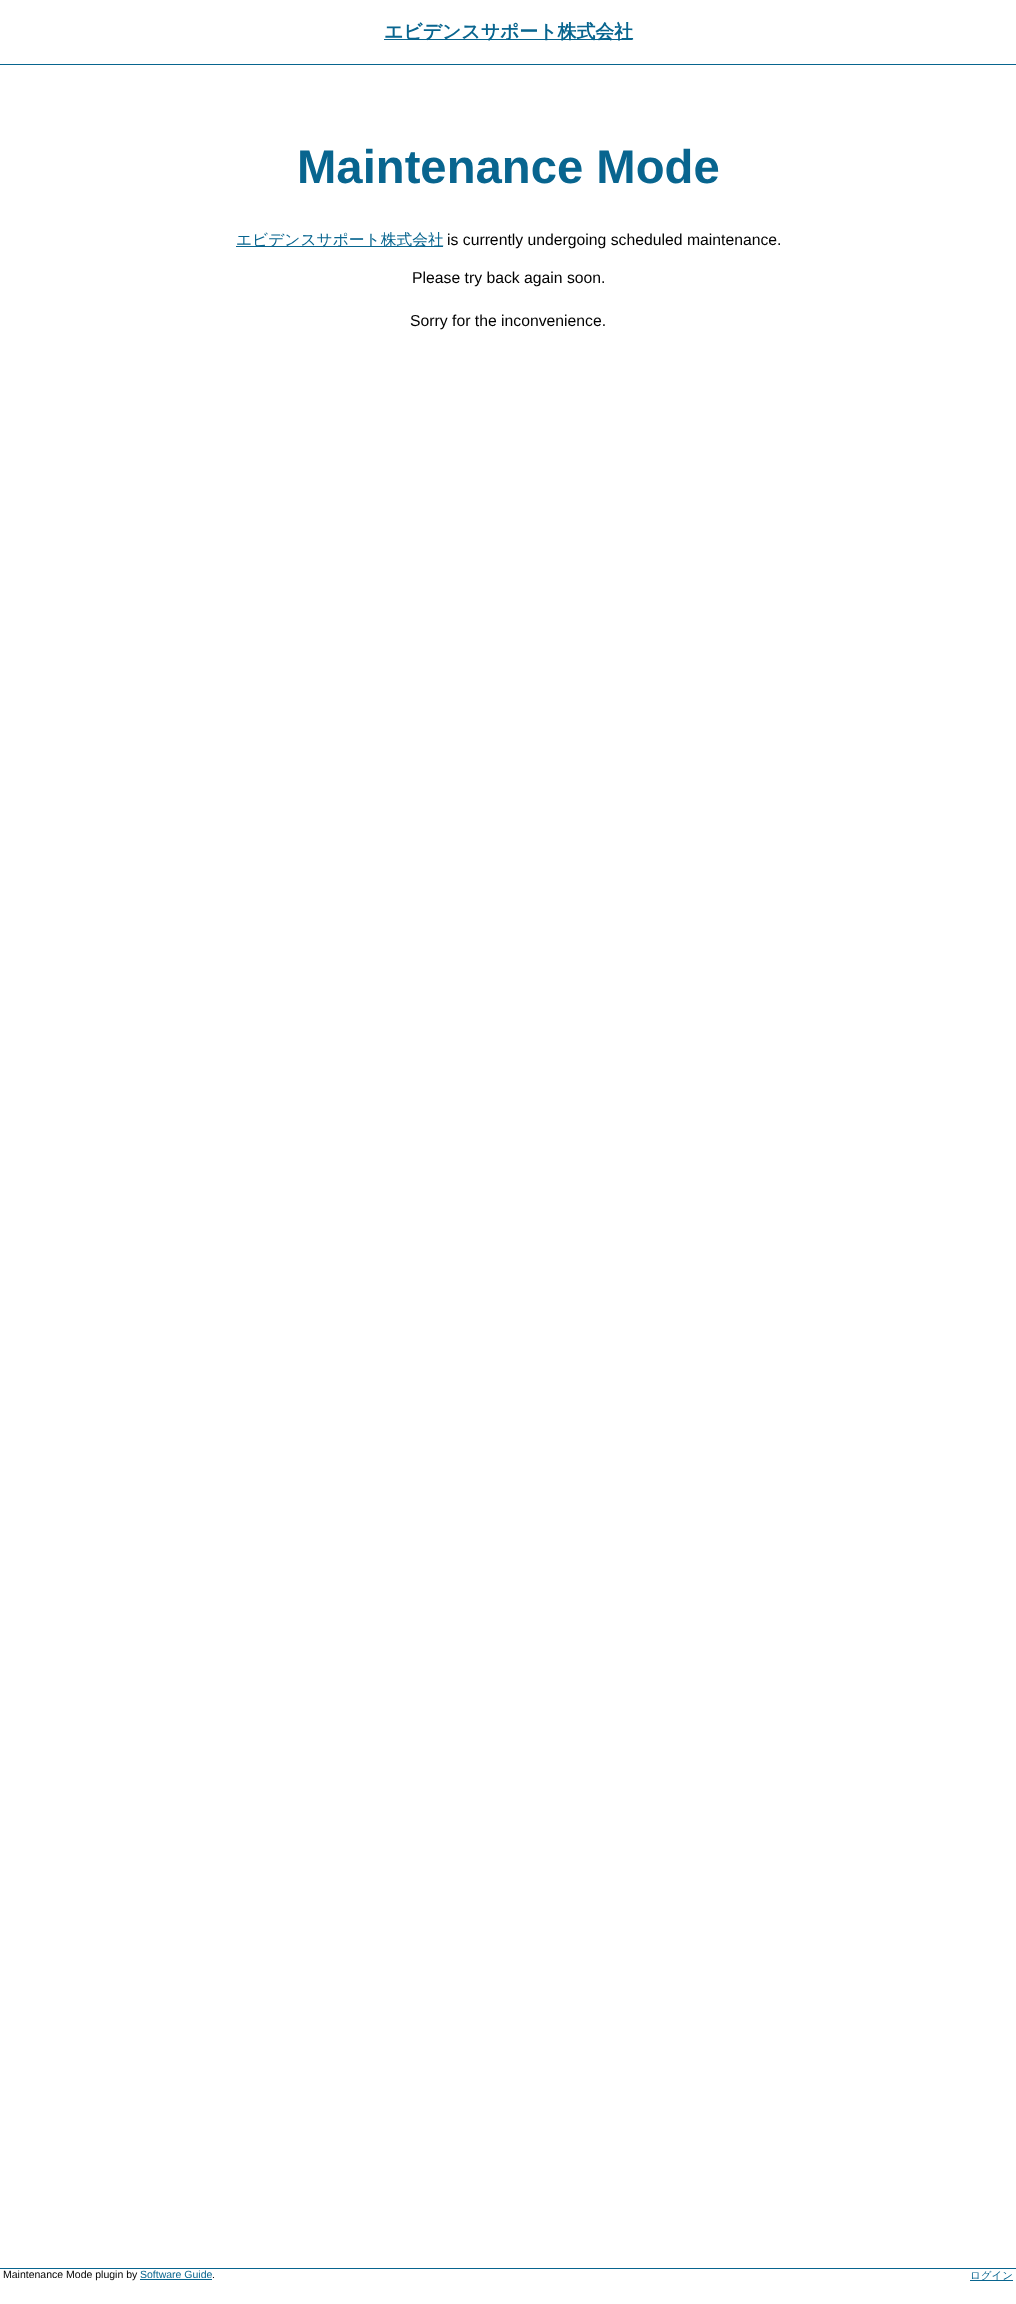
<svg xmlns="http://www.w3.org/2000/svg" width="1016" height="2304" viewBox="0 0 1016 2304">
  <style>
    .t1 { font: bold 18.9px WenQuanYi Zen Hei; fill: #08658f; }
    .t2 { font: bold 47.25px Liberation Sans; fill: #08658f; }
    .t3 { font: 500 15.75px WenQuanYi Zen Hei; fill: #08658f; }
    .t4 { font: 15.75px Liberation Sans; fill: #000; }
    .t5 { font: 10.5px Liberation Sans; fill: #000; }
    .t6 { font: 10.5px Liberation Sans; fill: #08658f; }
    .t7 { font: 500 10.5px WenQuanYi Zen Hei; fill: #08658f; }
  </style>
  <rect width="100%" height="100%" fill="#fff"/>
  <rect x="0" y="64" width="1016" height="1" fill="#08658f"/>
  <rect x="384" y="39" width="248" height="1" fill="#08658f"/>
  <text x="384" y="38" class="t1">エビデンスサポート株式会社</text>
  <text x="297" y="183" class="t2">Maintenance Mode</text>
  <rect x="236" y="246" width="207" height="1" fill="#08658f"/>
  <text x="236" y="245" class="t3">エビデンスサポート株式会社</text>
  <text x="447" y="245" class="t4">is currently undergoing scheduled maintenance.</text>
  <text x="412" y="283" class="t4">Please try back again soon.</text>
  <text x="410" y="326" class="t4">Sorry for the inconvenience.</text>
  <rect x="0" y="2268" width="1016" height="1" fill="#08658f"/>
  <text x="3" y="2278" class="t5">Maintenance Mode plugin by</text>
  <text x="140" y="2278" class="t6">Software Guide</text>
  <rect x="140" y="2279" width="72" height="1" fill="#08658f"/>
  <text x="212" y="2278" class="t5">.</text>
  <rect x="970" y="2280" width="43" height="1" fill="#08658f"/>
  <text x="970" y="2279" class="t7">ログイン</text>
</svg>
